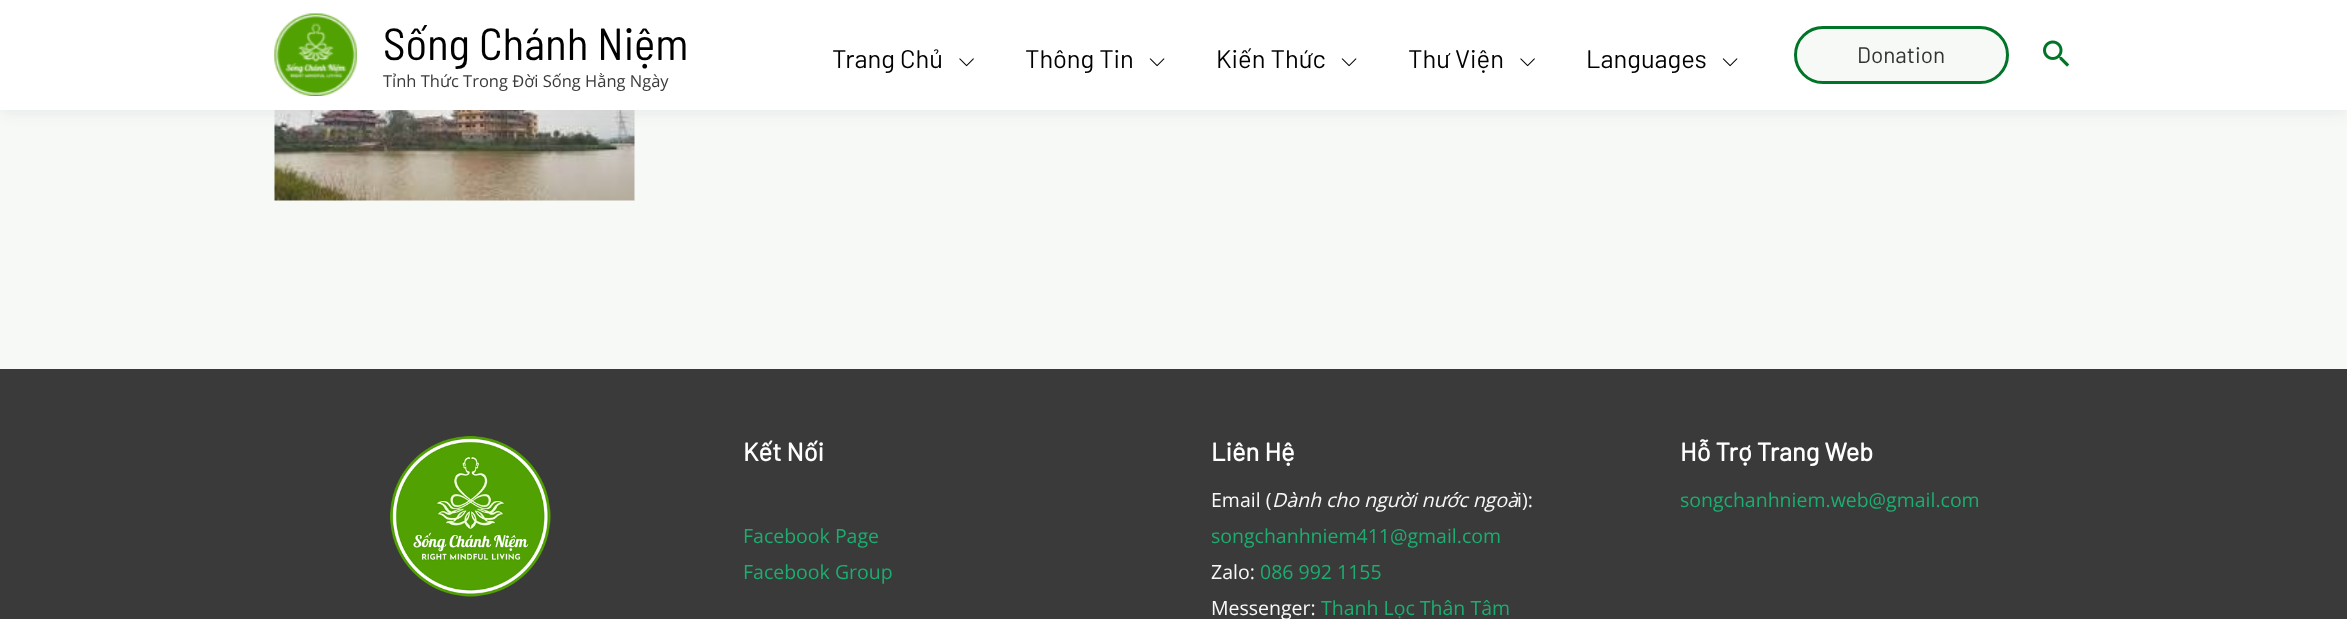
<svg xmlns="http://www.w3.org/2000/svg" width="2347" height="619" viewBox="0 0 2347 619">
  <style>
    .t1 { font: 45px Barlow Semi Condensed; fill: #000; }
    .t2 { font: 16.5px Open Sans; fill: #3a3a3a; }
    .t3 { font: 25.5px Barlow; fill: #000; }
    .t4 { font: 22.5px Barlow; fill: #333; }
    .t5 { font: bold 25.5px Barlow; fill: #fff; }
    .t6 { font: 19.5px Open Sans; fill: #1bae70; }
    .t7 { font: 19.5px Open Sans; fill: #f6f9f6; }
    .t8 { font: italic 19.5px Open Sans; fill: #f6f9f6; }
  </style>
  <rect width="100%" height="100%" fill="#f6f9f6"/>
  <image x="274" y="110" width="361" height="91" href="images/5.png"/>
  <rect x="0" y="3" width="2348" height="110" fill="#24324212" filter="blur(7.5px)"/>
  <rect x="0" y="0" width="2347" height="110" fill="#fff"/>
  <image x="274" y="13" width="83" height="83" href="images/1.png"/>
  <text x="383" y="60" class="t1">Sống Chánh Niệm</text>
  <text x="383" y="87" class="t2">Tỉnh Thức Trong Đời Sống Hằng Ngày</text>
  <text x="832" y="68" class="t3">Trang Chủ</text>
  <image x="959" y="58" width="15" height="9" href="images/2.png"/>
  <text x="1025" y="68" class="t3">Thông Tin</text>
  <image x="1149" y="58" width="16" height="9" href="images/3.png"/>
  <text x="1216" y="68" class="t3">Kiến Thức</text>
  <image x="1341" y="58" width="16" height="9" href="images/3.png"/>
  <text x="1408" y="68" class="t3">Thư Viện</text>
  <image x="1520" y="58" width="15" height="9" href="images/2.png"/>
  <text x="1586" y="68" class="t3">Languages</text>
  <image x="1722" y="58" width="16" height="9" href="images/3.png"/>
  <rect x="1795.5" y="27.5" width="212" height="55" rx="27.5" fill="#f6f9f6" stroke="#007527" stroke-width="3"/>
  <text x="1857" y="63" class="t4">Donation</text>
  <image x="2043" y="40" width="27" height="27" href="images/4.png"/>
  <rect x="0" y="369" width="2347" height="250" fill="#3a3a3a"/>
  <image x="390" y="436" width="161" height="161" href="images/6.png"/>
  <text x="743" y="461" class="t5">Kết Nối</text>
  <text x="743" y="543" class="t6">Facebook Page</text>
  <text x="743" y="579" class="t6">Facebook Group</text>
  <text x="1211" y="461" class="t5">Liên Hệ</text>
  <text x="1211" y="507" class="t7">Email (</text>
  <text x="1272" y="507" class="t8">Dành cho người nước ngoà</text>
  <text x="1517" y="507" class="t7">i):</text>
  <text x="1211" y="543" class="t6">songchanhniem411@gmail.com</text>
  <text x="1211" y="579" class="t7">Zalo:</text>
  <text x="1260" y="579" class="t6">086 992 1155</text>
  <text x="1211" y="615" class="t7">Messenger:</text>
  <text x="1321" y="615" class="t6">Thanh Lọc Thân Tâm</text>
  <text x="1680" y="461" class="t5">Hỗ Trợ Trang Web</text>
  <text x="1680" y="507" class="t6">songchanhniem.web@gmail.com</text>
</svg>
